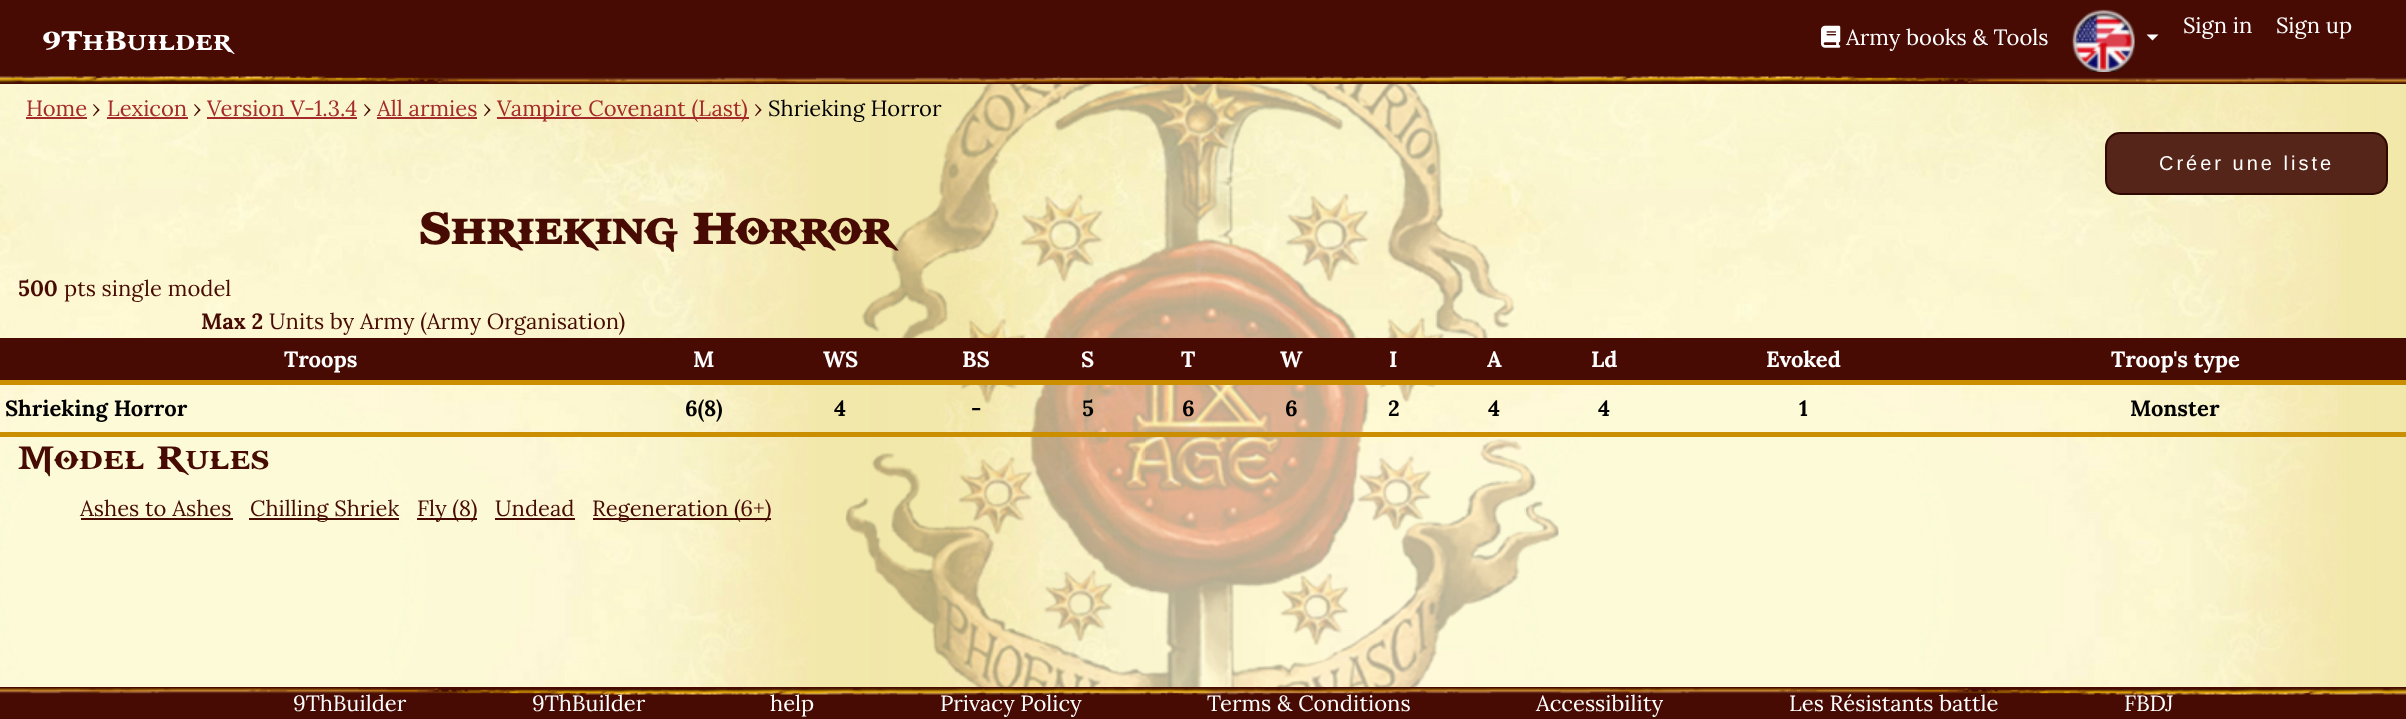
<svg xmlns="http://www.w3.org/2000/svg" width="2406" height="719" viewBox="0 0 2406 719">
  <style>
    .t1 { font: 30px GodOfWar; fill: #fff; }
    .t2 { font: 22px Lora; fill: #fff; }
    .t3 { font: 22px Lora; fill: #a52a2a; }
    .t4 { font: 22px Lora; fill: #470b03; }
    .t5 { font: 22px Lora; fill: #000; }
    .t6 { font: 20px Liberation Sans; letter-spacing: 3px; fill: #fff; }
    .t7 { font: bold 48px GodOfWar; fill: #470b03; }
    .t8 { font: bold 22px Lora; fill: #470b03; }
    .t9 { font: bold 22px Lora; fill: #fff; }
    .t10 { font: bold 22px Lora; fill: #000; }
    .t11 { font: 36px GodOfWar; fill: #470b03; }
  </style>
  <rect width="100%" height="100%" fill="#fff"/>
  <image x="0" y="84" width="2406" height="603" href="images/1.png"/>
  <rect x="0" y="0" width="2406" height="84" fill="#470b03"/>
  <image x="0" y="76" width="2406" height="7" href="images/2.png"/>
  <text x="42" y="50" class="t1">9ThBuilder</text>
  <image x="1821" y="25" width="20" height="23" href="images/3.png"/>
  <text x="1846" y="45" class="t2">Army books &amp; Tools</text>
  <image x="2071" y="9" width="64" height="63" href="images/4.png"/>
  <path d="M2146.5 34.5H2158.5L2152.5 40.5Z" fill="#fff"/>
  <text x="2183" y="33" class="t2">Sign in</text>
  <text x="2276" y="33" class="t2">Sign up</text>
  <image x="845" y="84" width="714" height="603" href="images/5.png"/>
  <text x="26" y="116" class="t3">Home</text>
  <rect x="26" y="117" width="61" height="2" fill="#a52a2a"/>
  <text x="92" y="116" class="t4">›</text>
  <text x="107" y="116" class="t3">Lexicon</text>
  <rect x="107" y="117" width="81" height="2" fill="#a52a2a"/>
  <text x="193" y="116" class="t4">›</text>
  <text x="207" y="116" class="t3">Version V-1.3.4</text>
  <rect x="207" y="117" width="150" height="2" fill="#a52a2a"/>
  <text x="363" y="116" class="t4">›</text>
  <text x="377" y="116" class="t3">All armies</text>
  <rect x="377" y="117" width="100" height="2" fill="#a52a2a"/>
  <text x="483" y="116" class="t4">›</text>
  <rect x="497" y="117" width="252" height="2" fill="#a52a2a"/>
  <text x="497" y="116" class="t3">Vampire Covenant (Last)</text>
  <text x="754" y="116" class="t4">›</text>
  <text x="768" y="116" class="t5">Shrieking Horror</text>
  <rect x="2106" y="133" width="281" height="61" rx="14" fill="#56251a" stroke="#2f0900" stroke-width="2"/>
  <text x="2159" y="170" class="t6">Créer une liste</text>
  <text x="419" y="244" class="t7">Shrieking Horror</text>
  <text x="18" y="296" class="t8">500</text>
  <text x="64" y="296" class="t4">pts single model</text>
  <text x="201" y="329" class="t8">Max 2</text>
  <text x="269" y="329" class="t4">Units by Army (Army Organisation)</text>
  <rect x="0" y="338" width="2406" height="42" fill="#470b03"/>
  <rect x="0" y="380" width="2406" height="5" fill="#cb8e00"/>
  <text x="284" y="367" class="t9">Troops</text>
  <text x="693" y="367" class="t9">M</text>
  <text x="823" y="367" class="t9">WS</text>
  <text x="962" y="367" class="t9">BS</text>
  <text x="1081" y="367" class="t9">S</text>
  <text x="1181" y="367" class="t9">T</text>
  <text x="1280" y="367" class="t9">W</text>
  <text x="1389" y="367" class="t9">I</text>
  <text x="1487" y="367" class="t9">A</text>
  <text x="1591" y="367" class="t9">Ld</text>
  <text x="1766" y="367" class="t9">Evoked</text>
  <text x="2111" y="367" class="t9">Troop's type</text>
  <rect x="0" y="432" width="2406" height="5" fill="#cb8e00"/>
  <text x="5" y="416" class="t10">Shrieking Horror</text>
  <text x="685" y="416" class="t10">6(8)</text>
  <text x="834" y="416" class="t10">4</text>
  <text x="971" y="416" class="t10">-</text>
  <text x="1082" y="416" class="t10">5</text>
  <text x="1182" y="416" class="t10">6</text>
  <text x="1285" y="416" class="t10">6</text>
  <text x="1388" y="416" class="t10">2</text>
  <text x="1488" y="416" class="t10">4</text>
  <text x="1598" y="416" class="t10">4</text>
  <text x="1799" y="416" class="t10">1</text>
  <text x="2130" y="416" class="t10">Monster</text>
  <text x="18" y="469" class="t11">Model Rules</text>
  <text x="80" y="516" class="t4">Ashes to Ashes</text>
  <rect x="81" y="518" width="152" height="2" fill="#470b03"/>
  <rect x="249" y="518" width="150" height="2" fill="#470b03"/>
  <text x="250" y="516" class="t4">Chilling Shriek</text>
  <rect x="417" y="518" width="60" height="2" fill="#470b03"/>
  <text x="417" y="516" class="t4">Fly (8)</text>
  <text x="495" y="516" class="t4">Undead</text>
  <rect x="495" y="518" width="80" height="2" fill="#470b03"/>
  <rect x="593" y="518" width="178" height="2" fill="#470b03"/>
  <text x="592" y="516" class="t4">Regeneration (6+)</text>
  <rect x="0" y="687" width="2406" height="32" fill="#470b03"/>
  <image x="0" y="688" width="2406" height="7" href="images/6.png"/>
  <text x="293" y="711" class="t2">9ThBuilder</text>
  <text x="532" y="711" class="t2">9ThBuilder</text>
  <text x="770" y="711" class="t2">help</text>
  <text x="940" y="711" class="t2">Privacy Policy</text>
  <text x="1207" y="711" class="t2">Terms &amp; Conditions</text>
  <text x="1536" y="711" class="t2">Accessibility</text>
  <text x="1789" y="711" class="t2">Les Résistants battle</text>
  <text x="2124" y="711" class="t2">FBDJ</text>
</svg>
